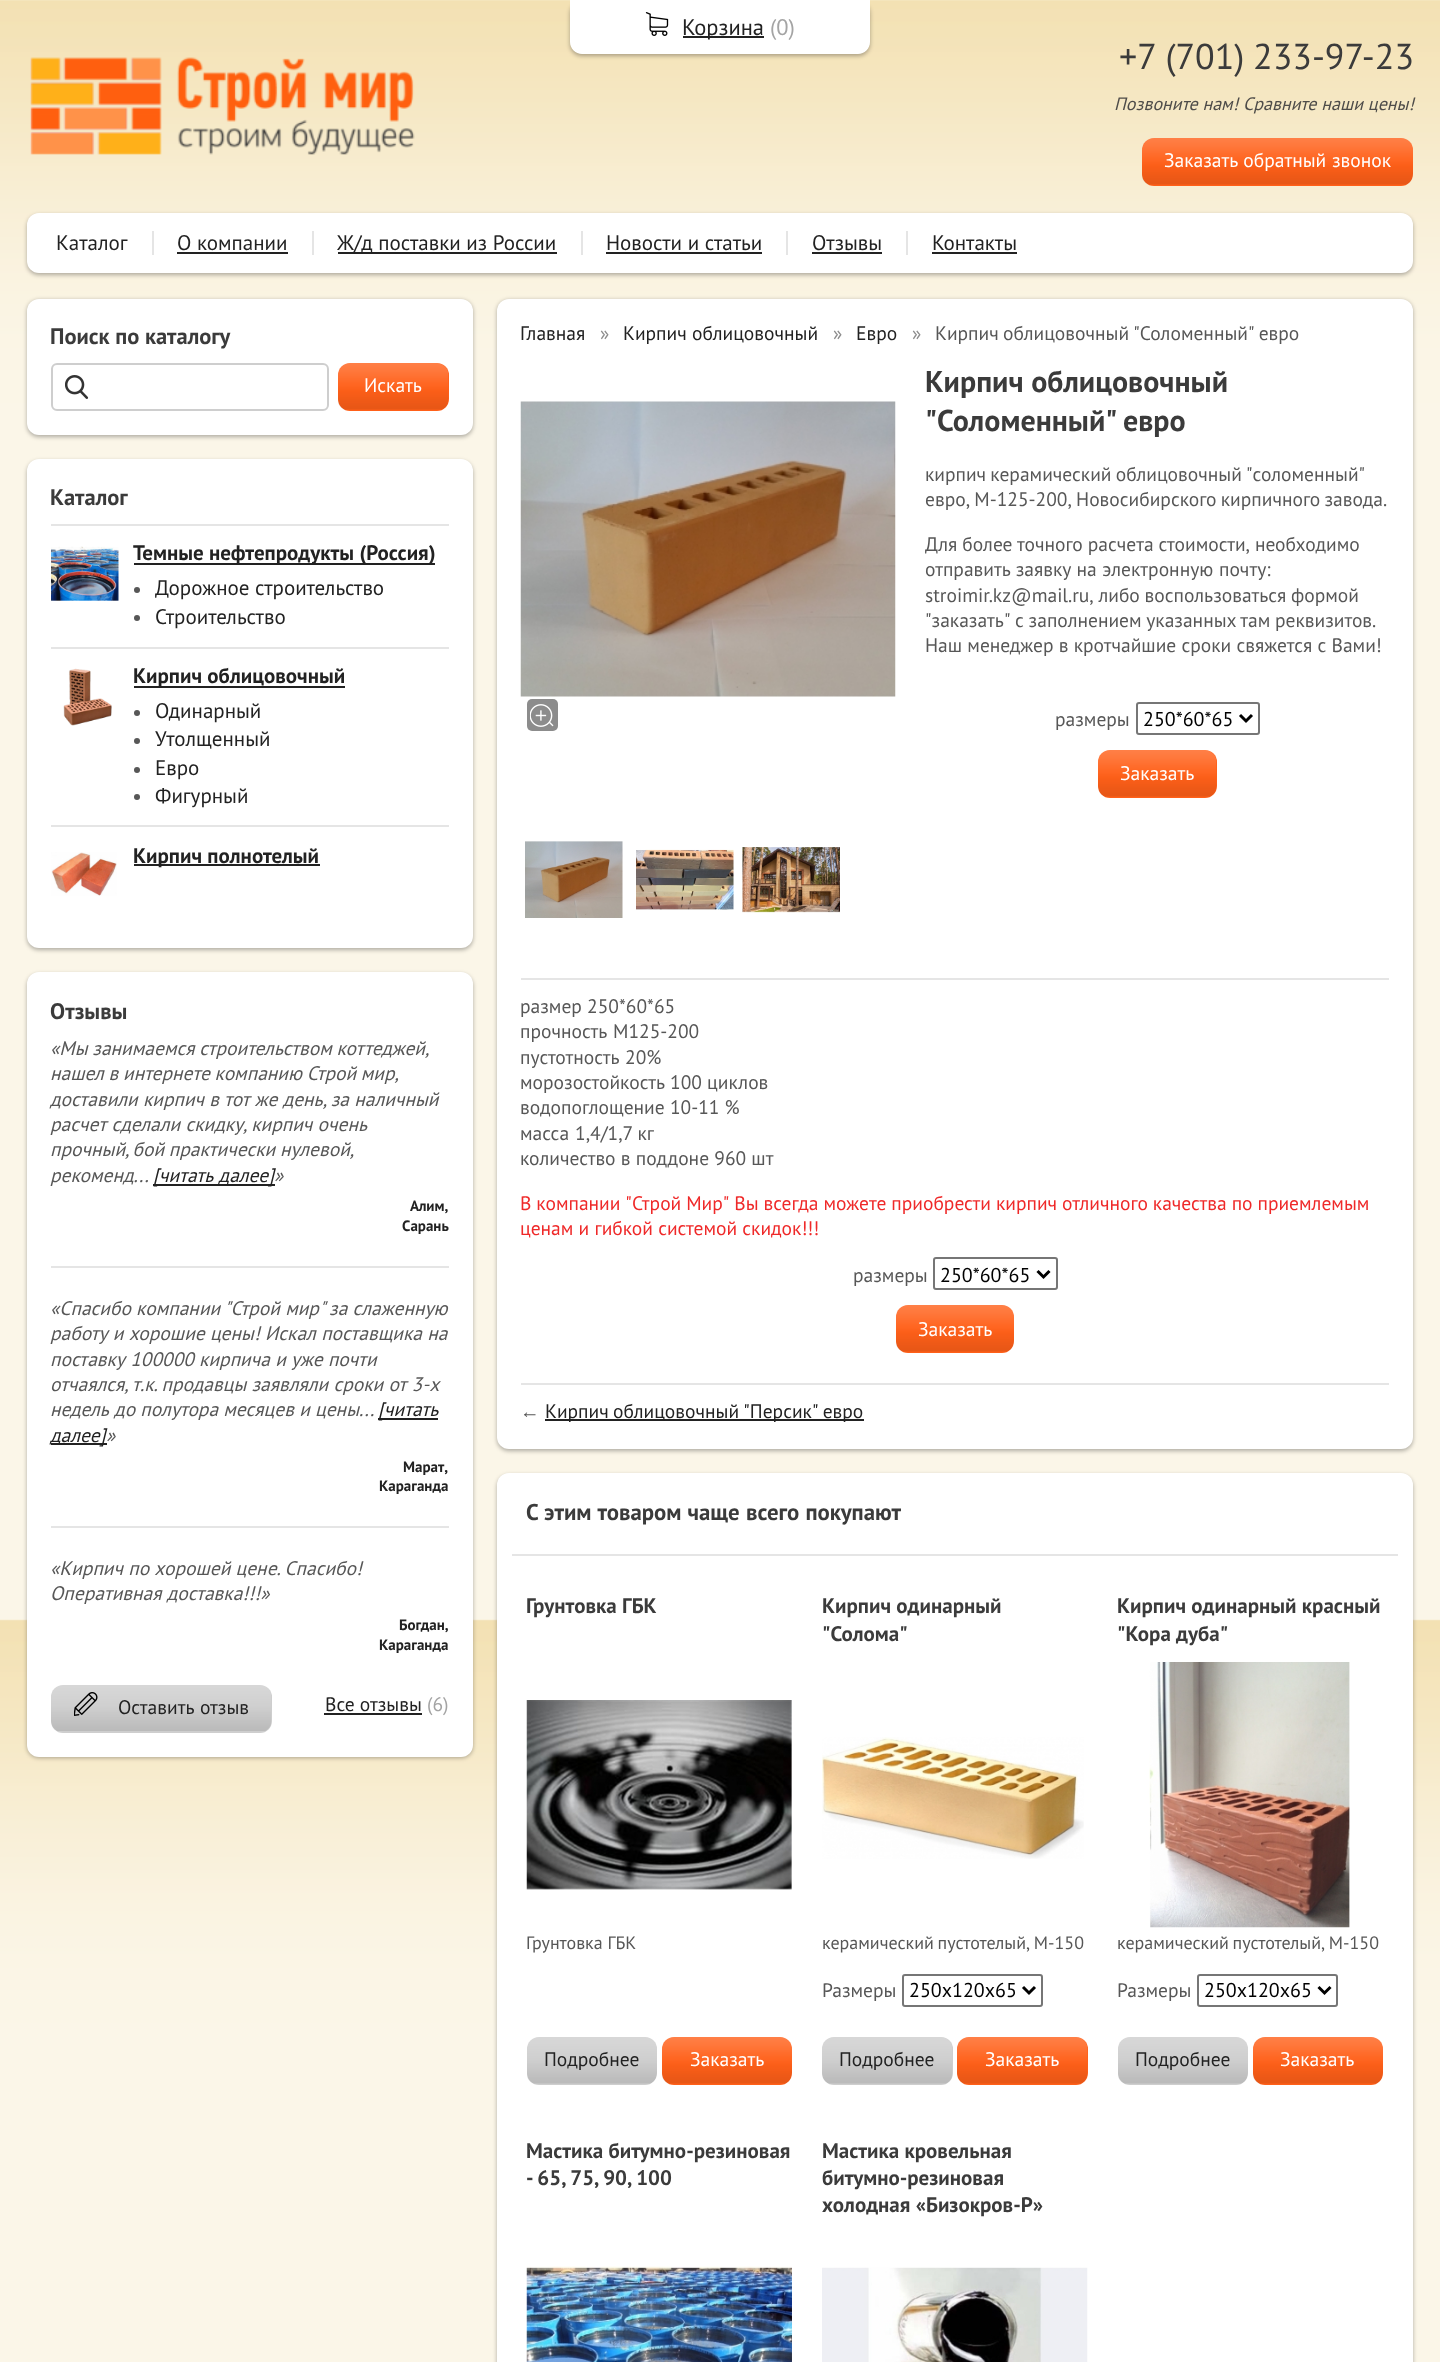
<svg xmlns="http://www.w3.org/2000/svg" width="1440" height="2362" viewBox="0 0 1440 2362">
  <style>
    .t1 { font: 22.5px PT Sans; fill: #222; }
    .t2 { font: 22.5px PT Sans; fill: #a4a4a4; }
    .t3 { font: 36px PT Sans; fill: #3b3b3b; }
    .t4 { font: italic 18px PT Sans; fill: #4e4c49; }
    .t5 { font: 19.5px PT Sans; fill: #fff; }
    .t6 { font: 21px PT Sans; fill: #222; }
    .t7 { font: bold 22.5px PT Sans; fill: #3b3b3b; }
    .t8 { font: bold 21px PT Sans; fill: #222; }
    .t9 { font: italic 19.5px PT Sans; fill: #575757; }
    .t10 { font: italic 19.5px PT Sans; fill: #222; }
    .t11 { font: bold 15px PT Sans; fill: #222; }
    .t12 { font: 19.5px PT Sans; fill: #222; }
    .t13 { font: 19.5px PT Sans; fill: #a4a4a4; }
    .t14 { font: 19.5px PT Sans; fill: #8c8c8c; }
    .t15 { font: 19.5px PT Sans; fill: #575757; }
    .t16 { font: bold 30px PT Sans; fill: #3b3b3b; }
    .t17 { font: 20px PT Sans; fill: #000; }
    .t18 { font: 19.5px PT Sans; fill: #ef2929; }
    .t19 { font: 19.5px Liberation Sans; fill: #575757; }
    .t20 { font: bold 22.8px PT Sans; fill: #3b3b3b; }
    .t21 { font: bold 21px PT Sans; fill: #3b3b3b; }
    .t22 { font: 18px PT Sans; fill: #575757; }
  </style>
  <rect width="100%" height="100%" fill="#fff"/>
  <image x="0" y="0" width="1440" height="2362" href="images/1.png"/>
  <rect x="570" y="2" width="300" height="54" rx="12" fill="#0000004d" filter="blur(2px)"/>
  <path d="M570 0H870V42C870 48.5 864.5 54 858 54H582C575.5 54 570 48.5 570 42Z" fill="#fff"/>
  <image x="645" y="12" width="24" height="24" href="images/2.png"/>
  <rect x="683" y="36" width="81" height="2" fill="#222"/>
  <text x="682" y="35" class="t1">Корзина</text>
  <text x="770" y="35" class="t2">(0)</text>
  <image x="30" y="57" width="385" height="98" href="images/3.png"/>
  <text x="1119" y="69" word-spacing="-1" class="t3">+7 (701) 233-97-23</text>
  <text x="1114" y="110" class="t4">Позвоните нам! Сравните наши цены!</text>
  <rect x="1142" y="138" width="271" height="48" rx="12" fill="#ff6019"/>
  <image x="1142" y="138" width="271" height="47" href="images/4.png"/>
  <text x="1164" y="167" word-spacing="0.5" class="t5">Заказать обратный звонок</text>
  <rect x="27" y="215" width="1386" height="60" rx="12" fill="#0000004d" filter="blur(2px)"/>
  <rect x="27" y="213" width="1386" height="60" rx="12" fill="#fff"/>
  <text x="56" y="250" class="t6">Каталог</text>
  <rect x="152" y="231" width="2" height="24" fill="#e5e5e5"/>
  <text x="177" y="250" class="t6">О компании</text>
  <rect x="177" y="252" width="111" height="2" fill="#222"/>
  <rect x="312" y="231" width="2" height="24" fill="#e5e5e5"/>
  <rect x="338" y="252" width="219" height="2" fill="#222"/>
  <text x="337" y="250" class="t6">Ж/д поставки из России</text>
  <rect x="581" y="231" width="2" height="24" fill="#e5e5e5"/>
  <text x="606" y="250" class="t6">Новости и статьи</text>
  <rect x="606" y="252" width="156" height="2" fill="#222"/>
  <rect x="786" y="231" width="2" height="24" fill="#e5e5e5"/>
  <text x="812" y="250" class="t6">Отзывы</text>
  <rect x="812" y="252" width="70" height="2" fill="#222"/>
  <rect x="906" y="231" width="2" height="24" fill="#e5e5e5"/>
  <text x="932" y="250" class="t6">Контакты</text>
  <rect x="932" y="252" width="85" height="2" fill="#222"/>
  <rect x="27" y="300" width="446" height="137" rx="12" fill="#0000004d" filter="blur(2px)"/>
  <rect x="27" y="299" width="446" height="136" rx="12" fill="#fff"/>
  <text x="50" y="344" class="t7">Поиск по каталогу</text>
  <image x="65" y="375" width="24" height="24" href="images/5.png"/>
  <rect x="52" y="364" width="276" height="46" rx="5" fill="none" stroke="#cecece" stroke-width="2"/>
  <rect x="338" y="363" width="111" height="48" rx="12" fill="#ff6019"/>
  <image x="338" y="363" width="111" height="47" href="images/6.png"/>
  <text x="364" y="392" class="t5">Искать</text>
  <rect x="27" y="461" width="446" height="489" rx="12" fill="#0000004d" filter="blur(2px)"/>
  <rect x="27" y="459" width="446" height="489" rx="12" fill="#fff"/>
  <text x="50" y="505" class="t7">Каталог</text>
  <rect x="51" y="524" width="398" height="2" fill="#e5e5e5"/>
  <image x="51" y="546" width="68" height="55" href="images/7.png"/>
  <rect x="134" y="563" width="301" height="2" fill="#222"/>
  <text x="133" y="560" class="t8">Темные нефтепродукты (Россия)</text>
  <circle cx="137" cy="590" r="3" fill="#575757"/>
  <text x="155" y="595" class="t6">Дорожное строительство</text>
  <circle cx="137" cy="618" r="3" fill="#575757"/>
  <text x="155" y="624" class="t6">Строительство</text>
  <rect x="51" y="647" width="398" height="2" fill="#e5e5e5"/>
  <image x="63" y="668" width="49" height="58" href="images/8.png"/>
  <rect x="134" y="686" width="211" height="2" fill="#222"/>
  <text x="133" y="683" class="t8">Кирпич облицовочный</text>
  <circle cx="137" cy="713" r="3" fill="#575757"/>
  <text x="155" y="718" class="t6">Одинарный</text>
  <circle cx="137" cy="741" r="3" fill="#575757"/>
  <text x="155" y="746" class="t6">Утолщенный</text>
  <circle cx="137" cy="770" r="3" fill="#575757"/>
  <text x="155" y="775" class="t6">Евро</text>
  <circle cx="137" cy="797" r="3" fill="#575757"/>
  <text x="155" y="803" class="t6">Фигурный</text>
  <rect x="51" y="825" width="398" height="2" fill="#e5e5e5"/>
  <image x="51" y="852" width="66" height="44" href="images/9.png"/>
  <rect x="134" y="864" width="186" height="2" fill="#222"/>
  <text x="133" y="863" class="t8">Кирпич полнотелый</text>
  <rect x="27" y="974" width="446" height="784" rx="12" fill="#0000004d" filter="blur(2px)"/>
  <rect x="27" y="972" width="446" height="785" rx="12" fill="#fff"/>
  <text x="50" y="1019" class="t7">Отзывы</text>
  <text x="50" y="1055" word-spacing="-0.5" class="t9">«Мы занимаемся строительством коттеджей,</text>
  <text x="50" y="1080" word-spacing="-0.5" class="t9">нашел в интернете компанию Строй мир,</text>
  <text x="50" y="1106" class="t9">доставили кирпич в тот же день, за наличный</text>
  <text x="50" y="1131" class="t9">расчет сделали скидку, кирпич очень</text>
  <text x="50" y="1156" word-spacing="-0.5" class="t9">прочный, бой практически нулевой,</text>
  <text x="50" y="1182" class="t9">рекоменд...</text>
  <rect x="153" y="1184" width="122" height="2" fill="#222"/>
  <text x="153" y="1182" class="t10">[читать далее]</text>
  <text x="274" y="1182" class="t9">»</text>
  <text x="410" y="1211" class="t11">Алим,</text>
  <text x="402" y="1231" class="t11">Сарань</text>
  <rect x="51" y="1266" width="398" height="2" fill="#e5e5e5"/>
  <text x="50" y="1315" class="t9">«Спасибо компании "Строй мир" за слаженную</text>
  <text x="50" y="1340" class="t9">работу и хорошие цены! Искал поставщика на</text>
  <text x="50" y="1366" class="t9">поставку 100000 кирпича и уже почти</text>
  <text x="50" y="1391" class="t9">отчаялся, т.к. продавцы заявляли сроки от 3-х</text>
  <text x="50" y="1416" class="t9">недель до полутора месяцев и цены...</text>
  <rect x="378" y="1418" width="60" height="2" fill="#222"/>
  <text x="378" y="1416" class="t10">[читать</text>
  <rect x="51" y="1443" width="56" height="2" fill="#222"/>
  <text x="50" y="1442" class="t10">далее]</text>
  <text x="106" y="1442" class="t9">»</text>
  <text x="403" y="1472" class="t11">Марат,</text>
  <text x="379" y="1491" class="t11">Караганда</text>
  <rect x="51" y="1526" width="398" height="2" fill="#e5e5e5"/>
  <text x="50" y="1575" class="t9">«Кирпич по хорошей цене. Спасибо!</text>
  <text x="50" y="1600" class="t9">Оперативная доставка!!!»</text>
  <text x="399" y="1630" class="t11">Богдан,</text>
  <text x="379" y="1650" class="t11">Караганда</text>
  <rect x="51" y="1685" width="221" height="48" rx="12" fill="#cecece"/>
  <image x="51" y="1685" width="220" height="46" href="images/10.png"/>
  <image x="74" y="1692" width="24" height="24" href="images/11.png"/>
  <text x="118" y="1714" word-spacing="1" class="t12">Оставить отзыв</text>
  <text x="325" y="1711" class="t12">Все отзывы</text>
  <rect x="324" y="1713" width="98" height="2" fill="#222"/>
  <text x="427" y="1711" class="t13">(6)</text>
  <rect x="497" y="300" width="916" height="1151" rx="12" fill="#0000004d" filter="blur(2px)"/>
  <rect x="497" y="299" width="916" height="1150" rx="12" fill="#fff"/>
  <text x="520" y="340" class="t12">Главная</text>
  <text x="600" y="340" class="t14">»</text>
  <text x="623" y="340" class="t12">Кирпич облицовочный</text>
  <text x="833" y="340" class="t14">»</text>
  <text x="856" y="340" class="t12">Евро</text>
  <text x="912" y="340" class="t14">»</text>
  <text x="935" y="340" word-spacing="-1" class="t15">Кирпич облицовочный "Соломенный" евро</text>
  <image x="520" y="401" width="376" height="296" href="images/12.png"/>
  <rect x="527" y="699" width="31" height="32" rx="5" fill="#8c8c8c"/>
  <image x="530" y="704" width="24" height="23" href="images/13.png"/>
  <image x="525" y="841" width="98" height="77" href="images/14.png"/>
  <image x="636" y="849" width="98" height="61" href="images/15.png"/>
  <image x="742" y="847" width="98" height="66" href="images/16.png"/>
  <text x="925" y="392" class="t16">Кирпич облицовочный</text>
  <text x="925" y="431" word-spacing="-2" class="t16">"Соломенный" евро</text>
  <text x="925" y="481" word-spacing="-1" class="t15">кирпич керамический облицовочный "соломенный"</text>
  <text x="925" y="506" word-spacing="-1" class="t15">евро, М-125-200, Новосибирского кирпичного завода.</text>
  <text x="925" y="551" word-spacing="-0.25" class="t15">Для более точного расчета стоимости, необходимо</text>
  <text x="925" y="576" word-spacing="0.5" class="t15">отправить заявку на электронную почту:</text>
  <text x="925" y="602" word-spacing="-0.5" class="t15">stroimir.kz@mail.ru, либо воспользоваться формой</text>
  <text x="925" y="627" word-spacing="-0.5" class="t15">"заказать" с заполнением указанных там реквизитов.</text>
  <text x="925" y="652" class="t15">Наш менеджер в кротчайшие сроки свяжется с Вами!</text>
  <text x="1055" y="726" class="t15">размеры</text>
  <rect x="1137" y="703" width="122" height="31" rx="2" fill="none" stroke="#767676" stroke-width="2"/>
  <path d="M1240 715L1246 721L1252 715" fill="none" stroke="#000" stroke-width="3"/>
  <text x="1143" y="726" class="t17">250*60*65</text>
  <rect x="1098" y="750" width="119" height="48" rx="12" fill="#ff6019"/>
  <image x="1098" y="750" width="119" height="47" href="images/17.png"/>
  <text x="1120" y="780" class="t5">Заказать</text>
  <rect x="521" y="978" width="868" height="2" fill="#e5e5e5"/>
  <text x="520" y="1013" class="t15">размер 250*60*65</text>
  <text x="520" y="1038" class="t15">прочность</text>
  <text x="613" y="1038" class="t15">М125-200</text>
  <text x="520" y="1064" class="t15">пустотность</text>
  <text x="625" y="1064" class="t15">20%</text>
  <text x="520" y="1089" class="t15">морозостойкость</text>
  <text x="670" y="1089" class="t15">100 циклов</text>
  <text x="520" y="1114" class="t15">водопоглощение 10-11 %</text>
  <text x="520" y="1140" class="t15">масса</text>
  <text x="575" y="1140" word-spacing="-1" class="t15">1,4/1,7 кг</text>
  <text x="520" y="1165" class="t15">количество в поддоне 960 шт</text>
  <text x="520" y="1210" word-spacing="-0.25" class="t18">В компании "Строй Мир" Вы всегда можете приобрести кирпич отличного качества по приемлемым</text>
  <text x="520" y="1235" class="t18">ценам и гибкой системой скидок!!!</text>
  <text x="853" y="1282" class="t15">размеры</text>
  <rect x="934" y="1258" width="123" height="31" rx="2" fill="none" stroke="#767676" stroke-width="2"/>
  <path d="M1037.5 1271L1043.5 1277L1049.5 1271" fill="none" stroke="#000" stroke-width="3"/>
  <text x="940" y="1282" class="t17">250*60*65</text>
  <rect x="896" y="1305" width="118" height="48" rx="12" fill="#ff6019"/>
  <image x="896" y="1305" width="118" height="47" href="images/18.png"/>
  <text x="918" y="1336" class="t5">Заказать</text>
  <rect x="521" y="1383" width="868" height="2" fill="#e5e5e5"/>
  <text x="520" y="1418" class="t19">←</text>
  <rect x="545" y="1419" width="319" height="2" fill="#222"/>
  <text x="545" y="1418" word-spacing="-1" class="t12">Кирпич облицовочный "Персик" евро</text>
  <rect x="497" y="1475" width="916" height="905" rx="12" fill="#0000004d" filter="blur(2px)"/>
  <rect x="497" y="1473" width="916" height="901" rx="12" fill="#fff"/>
  <text x="526" y="1520" word-spacing="0.5" class="t20">С этим товаром чаще всего покупают</text>
  <rect x="512" y="1554" width="886" height="2" fill="#e5e5e5"/>
  <text x="526" y="1613" class="t21">Грунтовка ГБК</text>
  <image x="526" y="1700" width="266" height="190" href="images/19.png"/>
  <text x="526" y="1949" class="t22">Грунтовка ГБК</text>
  <rect x="527" y="2037" width="130" height="48" rx="12" fill="#cecece"/>
  <image x="527" y="2037" width="130" height="47" href="images/20.png"/>
  <text x="544" y="2066" class="t12">Подробнее</text>
  <rect x="662" y="2037" width="130" height="48" rx="12" fill="#ff6019"/>
  <image x="662" y="2037" width="130" height="47" href="images/21.png"/>
  <text x="690" y="2066" class="t5">Заказать</text>
  <text x="822" y="1613" class="t21">Кирпич одинарный</text>
  <text x="822" y="1641" class="t21">"Солома"</text>
  <image x="822" y="1737" width="262" height="122" href="images/22.png"/>
  <text x="822" y="1949" word-spacing="-1" class="t22">керамический пустотелый, М-150</text>
  <text x="822" y="1997" class="t15">Размеры</text>
  <rect x="903" y="1975" width="139" height="31" rx="2" fill="none" stroke="#767676" stroke-width="2"/>
  <path d="M1023 1987L1029 1993L1035 1987" fill="none" stroke="#000" stroke-width="3"/>
  <text x="909" y="1997" class="t17">250х120x65</text>
  <rect x="822" y="2037" width="131" height="48" rx="12" fill="#cecece"/>
  <image x="822" y="2037" width="130" height="47" href="images/23.png"/>
  <text x="839" y="2066" class="t12">Подробнее</text>
  <rect x="957" y="2037" width="131" height="48" rx="12" fill="#ff6019"/>
  <image x="957" y="2037" width="131" height="47" href="images/24.png"/>
  <text x="985" y="2066" class="t5">Заказать</text>
  <text x="1117" y="1613" class="t21">Кирпич одинарный красный</text>
  <text x="1117" y="1641" class="t21">"Кора дуба"</text>
  <image x="1149" y="1662" width="201" height="266" href="images/25.png"/>
  <text x="1117" y="1949" word-spacing="-1" class="t22">керамический пустотелый, М-150</text>
  <text x="1117" y="1997" class="t15">Размеры</text>
  <rect x="1198" y="1975" width="139" height="31" rx="2" fill="none" stroke="#767676" stroke-width="2"/>
  <path d="M1318.5 1987L1324.5 1993L1330.5 1987" fill="none" stroke="#000" stroke-width="3"/>
  <text x="1204" y="1997" class="t17">250х120х65</text>
  <rect x="1118" y="2037" width="130" height="48" rx="12" fill="#cecece"/>
  <image x="1118" y="2037" width="130" height="47" href="images/26.png"/>
  <text x="1135" y="2066" class="t12">Подробнее</text>
  <rect x="1253" y="2037" width="130" height="48" rx="12" fill="#ff6019"/>
  <image x="1253" y="2037" width="130" height="47" href="images/27.png"/>
  <text x="1280" y="2066" class="t5">Заказать</text>
  <text x="526" y="2158" class="t21">Мастика битумно-резиновая</text>
  <text x="526" y="2185" word-spacing="-1.5" class="t21">- 65, 75, 90, 100</text>
  <image x="526" y="2266" width="266" height="96" href="images/28.png"/>
  <text x="822" y="2158" class="t21">Мастика кровельная</text>
  <text x="822" y="2185" class="t21">битумно-резиновая</text>
  <text x="822" y="2212" class="t21">холодная «Бизокров-Р»</text>
  <image x="822" y="2267" width="266" height="95" href="images/29.png"/>
</svg>
